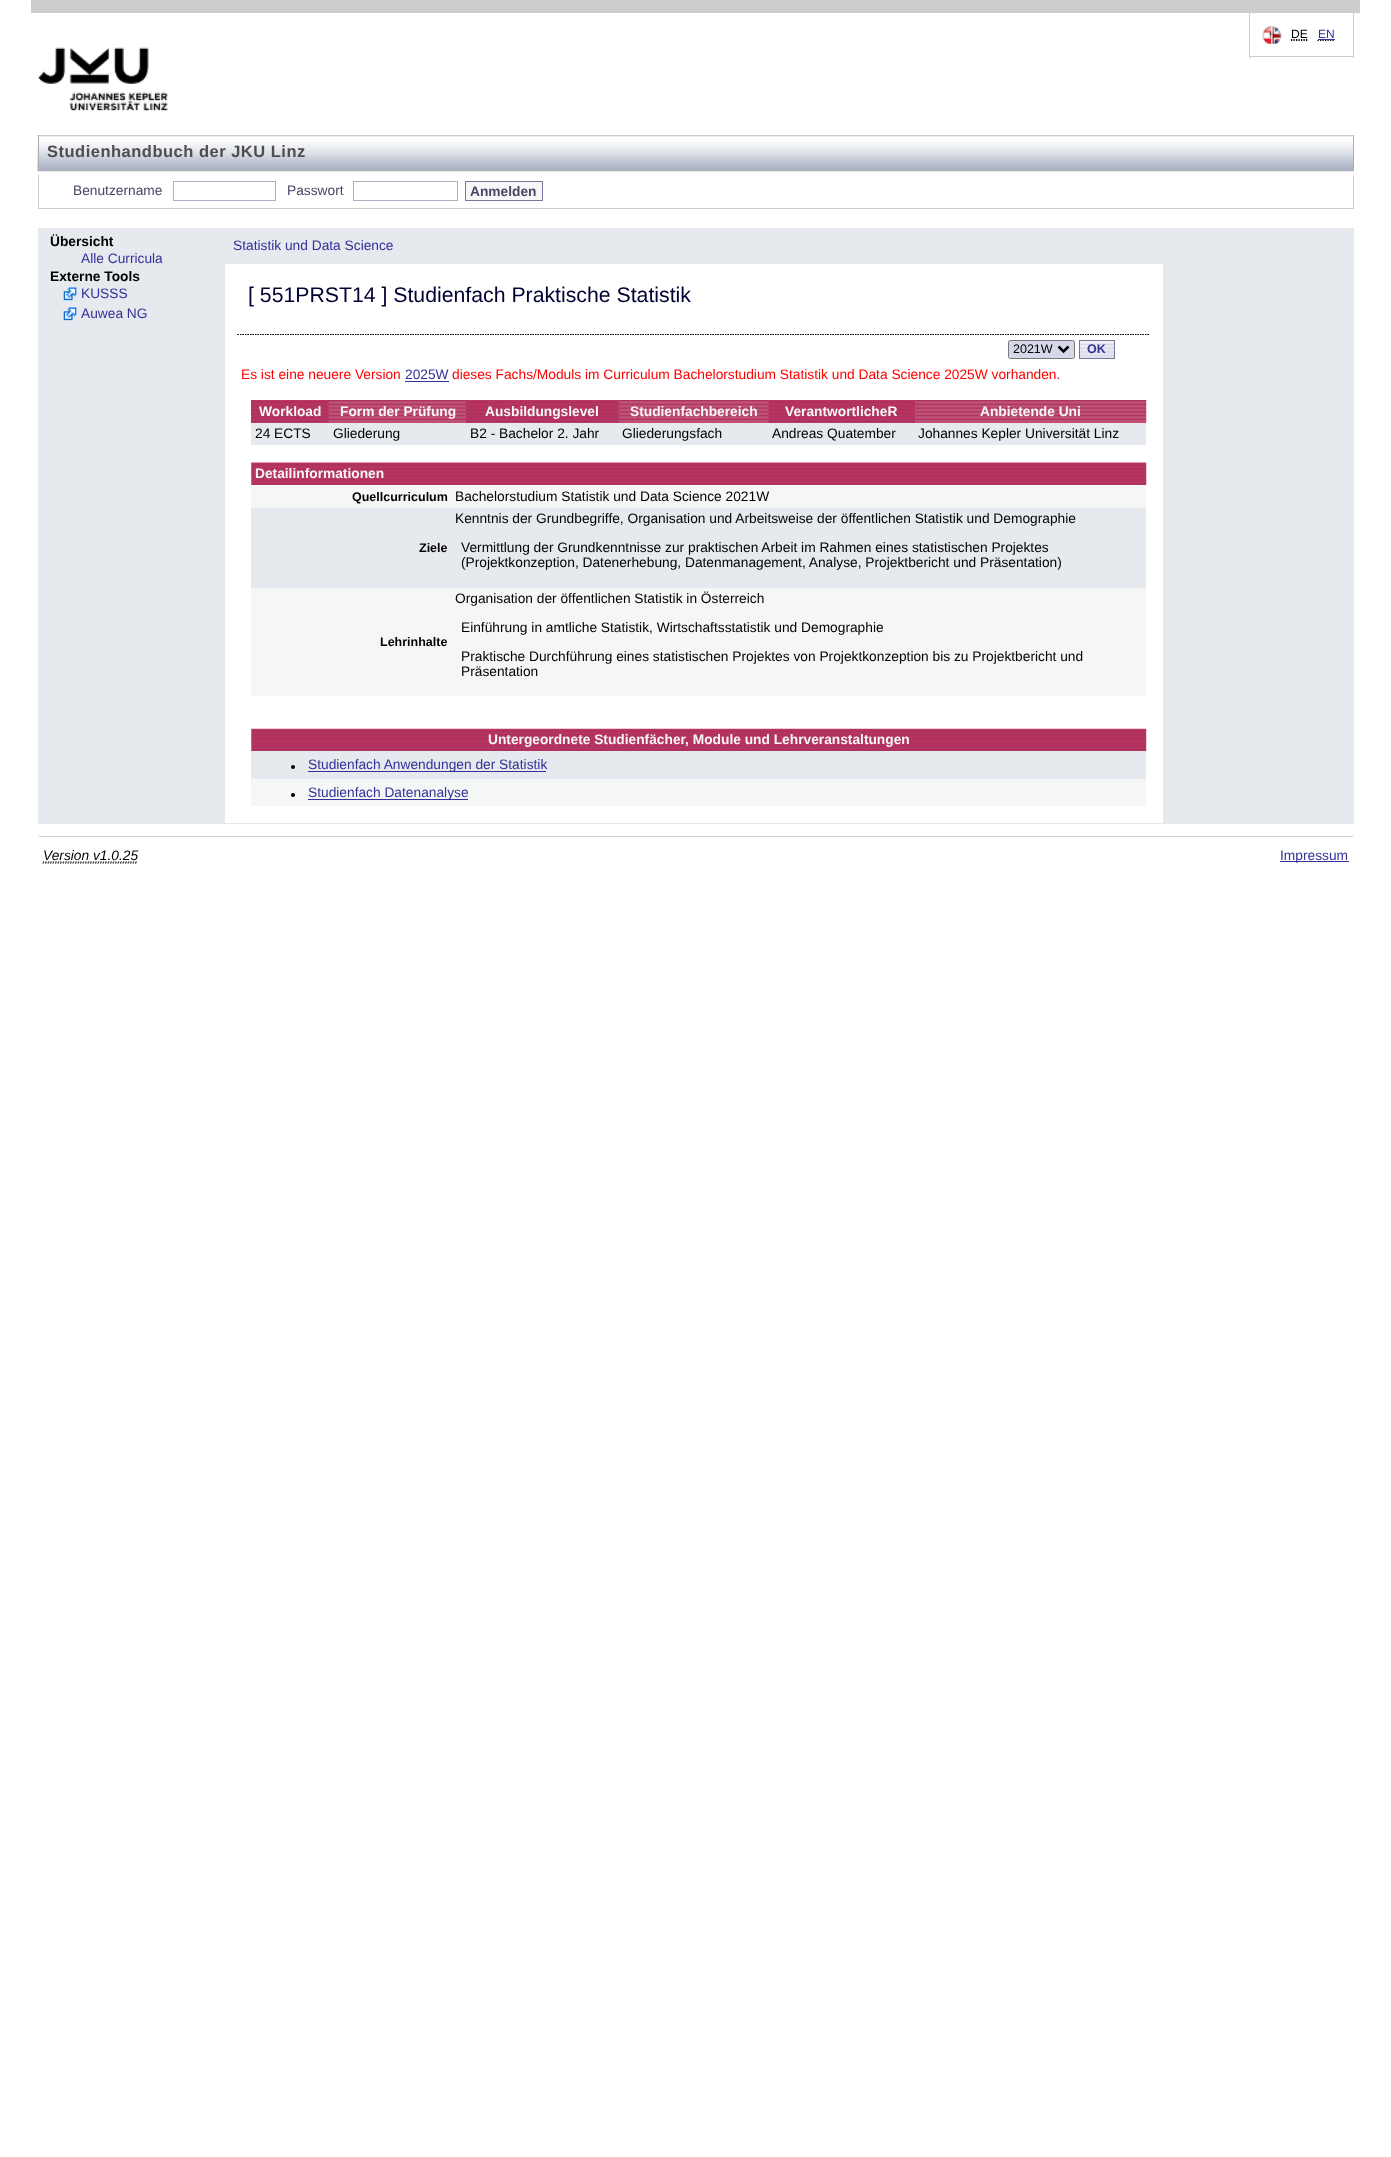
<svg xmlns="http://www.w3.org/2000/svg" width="1391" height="2157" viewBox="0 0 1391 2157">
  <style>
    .t1 { font: 12px Liberation Sans; fill: #000; }
    .t2 { font: 12px Liberation Sans; fill: #333298; }
    .t3 { font: bold 16.5px Liberation Sans; letter-spacing: 0.5px; fill: #4e4e4e; }
    .t4 { font: 13.75px Liberation Sans; fill: #474766; }
    .t5 { font: bold 13.75px Liberation Sans; fill: #474766; }
    .t6 { font: bold 13.75px Liberation Sans; fill: #000; }
    .t7 { font: 13.75px Liberation Sans; fill: #333298; }
    .t8 { font: 21.25px Liberation Sans; fill: #003; }
    .t9 { font: 12.5px Liberation Sans; fill: #000; }
    .t10 { font: bold 12.5px Liberation Sans; fill: #333298; }
    .t11 { font: 13.75px Liberation Sans; fill: #f00; }
    .t12 { font: bold 13.75px Liberation Sans; fill: #f7f7f7; }
    .t13 { font: 13.75px Liberation Sans; fill: #000; }
    .t14 { font: bold 12.5px Liberation Sans; fill: #000; }
    .t15 { font: italic 13.75px Liberation Sans; fill: #000; }
  </style>
  <rect width="100%" height="100%" fill="#fff"/>
  <rect x="31" y="0" width="1329" height="13" fill="#ccc"/>
  <rect x="1353" y="13" width="1" height="45" fill="#ccc"/>
  <rect x="1249" y="56" width="105" height="1" fill="#ccc"/>
  <rect x="1249" y="13" width="1" height="45" fill="#ccc"/>
  <image x="1262" y="26" width="20" height="18" href="images/1.png"/>
  <text x="1291" y="38" class="t1">DE</text>
  <path d="M1291 40.5H1307.5M1291 39.5H1308" fill="none" stroke="#000" stroke-width="1.2" stroke-dasharray="1.25 1.25"/>
  <text x="1318" y="38" class="t2">EN</text>
  <path d="M1317.5 40.5H1335" fill="none" stroke="#000" stroke-width="1.2" stroke-dasharray="1.25 1.25"/>
  <path d="M1318 39.5H1335" fill="none" stroke="#333298" stroke-width="1.2" stroke-dasharray="1.25 1.25"/>
  <rect x="1318" y="39" width="17" height="1" fill="#333298"/>
  <image x="37" y="47" width="131" height="64" href="images/2.png"/>
  <image x="37" y="135" width="1317" height="37" href="images/3.png"/>
  <rect x="1353" y="135" width="1" height="36" fill="#aeaeae"/>
  <rect x="38" y="170" width="1316" height="1" fill="#aeaeae"/>
  <rect x="38" y="135" width="1" height="36" fill="#aeaeae"/>
  <text x="47" y="157" class="t3">Studienhandbuch der JKU Linz</text>
  <rect x="1353" y="175" width="1" height="34" fill="#ccc"/>
  <rect x="38" y="208" width="1316" height="1" fill="#ccc"/>
  <rect x="38" y="175" width="1" height="34" fill="#ccc"/>
  <text x="73" y="195" class="t4">Benutzername</text>
  <rect x="173.5" y="181.5" width="102" height="19" fill="none" stroke="#b0aec3"/>
  <text x="287" y="195" class="t4">Passwort</text>
  <rect x="353.5" y="181.5" width="104" height="19" fill="none" stroke="#b0aec3"/>
  <rect x="465.5" y="181.5" width="77" height="19" fill="#f7f7f7" stroke="#747895"/>
  <text x="470" y="196" class="t5">Anmelden</text>
  <rect x="38" y="228" width="187" height="595" fill="#e6e9ee"/>
  <text x="50" y="246" class="t6">Übersicht</text>
  <text x="81" y="263" class="t7">Alle Curricula</text>
  <text x="50" y="281" class="t6">Externe Tools</text>
  <image x="63" y="287" width="14" height="14" href="images/4.png"/>
  <text x="81" y="298" class="t7">KUSSS</text>
  <image x="63" y="307" width="14" height="14" href="images/5.png"/>
  <text x="81" y="318" class="t7">Auwea NG</text>
  <rect x="225" y="228" width="1129" height="36" fill="#e6e9ee"/>
  <text x="233" y="250" class="t7">Statistik und Data Science</text>
  <rect x="1163" y="263" width="1" height="560" fill="#e6e9ee"/>
  <path d="M237.5 334.5H1150" fill="none" stroke="#000" stroke-width="1.2" stroke-dasharray="1.25 1.25"/>
  <path d="M237.5 334.5H1150" fill="none" stroke="#000" stroke-width="1.2" stroke-dasharray="1.25 1.25"/>
  <text x="248" y="302" class="t8">[ 551PRST14 ] Studienfach Praktische Statistik</text>
  <rect x="1008.5" y="340.5" width="66" height="18" rx="2" fill="#d6d7e9" stroke="#767676"/>
  <path d="M1058.5 346.5L1063.5 351.5L1068.5 346.5" fill="none" stroke="#000" stroke-width="2.5"/>
  <text x="1013" y="353" class="t9">2021W</text>
  <image x="1080" y="341" width="34" height="17" href="images/6.png"/>
  <rect x="1079.5" y="340.5" width="35" height="18" fill="none" stroke="#747895"/>
  <text x="1087" y="353" class="t10">OK</text>
  <text x="241" y="379" class="t11">Es ist eine neuere Version</text>
  <text x="405" y="379" class="t7">2025W</text>
  <rect x="405" y="381" width="44" height="1" fill="#333298"/>
  <text x="452" y="379" class="t11">dieses Fachs/Moduls im Curriculum Bachelorstudium Statistik und Data Science 2025W vorhanden.</text>
  <rect x="251" y="400" width="78" height="23" fill="#b24372"/>
  <image x="251" y="400" width="78" height="23" href="images/7.png"/>
  <text x="259" y="416" class="t12">Workload</text>
  <rect x="329" y="422" width="137" height="1" fill="#d03b6f"/>
  <image x="328" y="400" width="138" height="23" href="images/8.png"/>
  <text x="340" y="416" class="t12">Form der Prüfung</text>
  <rect x="466" y="400" width="153" height="23" fill="#b24372"/>
  <image x="466" y="400" width="153" height="23" href="images/9.png"/>
  <text x="485" y="416" class="t12">Ausbildungslevel</text>
  <rect x="619" y="400" width="150" height="23" fill="#d03b6f"/>
  <image x="618" y="400" width="151" height="23" href="images/10.png"/>
  <text x="630" y="416" class="t12">Studienfachbereich</text>
  <rect x="769" y="422" width="146" height="1" fill="#b24372"/>
  <image x="768" y="400" width="147" height="23" href="images/11.png"/>
  <text x="785" y="416" class="t12">VerantwortlicheR</text>
  <rect x="915" y="422" width="231" height="1" fill="#d03b6f"/>
  <image x="915" y="400" width="232" height="23" href="images/12.png"/>
  <text x="980" y="416" class="t12">Anbietende Uni</text>
  <rect x="251" y="423" width="895" height="22" fill="#e6e9ed"/>
  <text x="255" y="438" class="t13">24 ECTS</text>
  <text x="333" y="438" class="t13">Gliederung</text>
  <text x="470" y="438" class="t13">B2 - Bachelor 2. Jahr</text>
  <text x="622" y="438" class="t13">Gliederungsfach</text>
  <text x="772" y="438" class="t13">Andreas Quatember</text>
  <text x="918" y="438" class="t13">Johannes Kepler Universität Linz</text>
  <image x="251" y="462" width="896" height="23" href="images/13.png"/>
  <text x="255" y="478" class="t12">Detailinformationen</text>
  <rect x="251" y="485" width="895" height="23" fill="#f5f7f7"/>
  <text x="352" y="501" class="t14">Quellcurriculum</text>
  <text x="455" y="501" class="t13">Bachelorstudium Statistik und Data Science 2021W</text>
  <rect x="251" y="508" width="895" height="80" fill="#e6e9ed"/>
  <text x="419" y="552" class="t14">Ziele</text>
  <text x="455" y="523" class="t13">Kenntnis der Grundbegriffe, Organisation und Arbeitsweise der öffentlichen Statistik und Demographie</text>
  <text x="461" y="552" class="t13">Vermittlung der Grundkenntnisse zur praktischen Arbeit im Rahmen eines statistischen Projektes</text>
  <text x="461" y="567" class="t13">(Projektkonzeption, Datenerhebung, Datenmanagement, Analyse, Projektbericht und Präsentation)</text>
  <rect x="251" y="588" width="895" height="108" fill="#f5f7f7"/>
  <text x="380" y="646" class="t14">Lehrinhalte</text>
  <text x="455" y="603" class="t13">Organisation der öffentlichen Statistik in Österreich</text>
  <text x="461" y="632" class="t13">Einführung in amtliche Statistik, Wirtschaftsstatistik und Demographie</text>
  <text x="461" y="661" class="t13">Praktische Durchführung eines statistischen Projektes von Projektkonzeption bis zu Projektbericht und</text>
  <text x="461" y="676" class="t13">Präsentation</text>
  <image x="251" y="728" width="896" height="24" href="images/14.png"/>
  <text x="488" y="744" class="t12">Untergeordnete Studienfächer, Module und Lehrveranstaltungen</text>
  <rect x="251" y="751" width="895" height="28" fill="#e6e9ed"/>
  <circle cx="293" cy="767" r="2" fill="#000"/>
  <rect x="308" y="771" width="238" height="1" fill="#333298"/>
  <text x="308" y="769" class="t7">Studienfach Anwendungen der Statistik</text>
  <rect x="251" y="779" width="895" height="27" fill="#f5f7f7"/>
  <circle cx="293" cy="795" r="2" fill="#000"/>
  <rect x="308" y="799" width="160" height="1" fill="#333298"/>
  <text x="308" y="797" class="t7">Studienfach Datenanalyse</text>
  <rect x="1164" y="264" width="190" height="559" fill="#e6e9ee"/>
  <rect x="38" y="823" width="1317" height="1" fill="#e6e9ee"/>
  <rect x="39" y="836" width="1314" height="1" fill="#ccc"/>
  <text x="43" y="860" class="t15">Version v1.0.25</text>
  <path d="M42.5 863H137.5" fill="none" stroke="#000" stroke-width="1.2" stroke-dasharray="1.25 1.25"/>
  <path d="M43 862H138" fill="none" stroke="#000" stroke-width="1.2" stroke-dasharray="1.25 1.25"/>
  <rect x="1280" y="861" width="69" height="1" fill="#333298"/>
  <text x="1280" y="860" class="t7">Impressum</text>
</svg>
